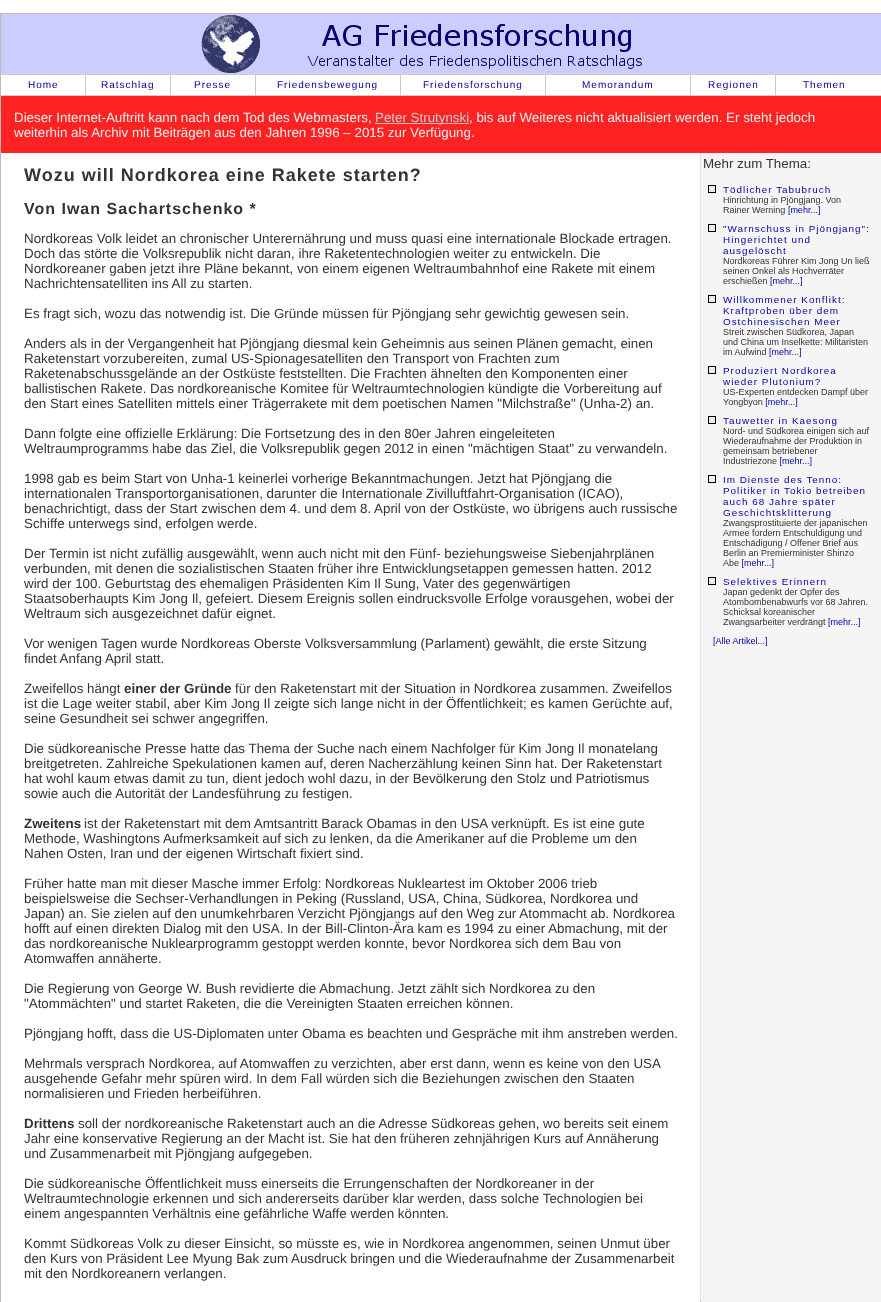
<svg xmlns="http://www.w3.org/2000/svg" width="881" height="1302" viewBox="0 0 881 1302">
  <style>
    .t1 { font: 10px Liberation Sans; letter-spacing: 1px; fill: #009; }
    .t2 { font: 13.35px Liberation Sans; fill: #eee; }
    .t3 { font: 13.35px Liberation Sans; fill: #ccc; }
    .t4 { font: bold 18px Liberation Sans; letter-spacing: 1px; fill: #333; }
    .t5 { font: bold 16px Liberation Sans; letter-spacing: 1px; fill: #333; }
    .t6 { font: 13.35px Liberation Sans; fill: #333; }
    .t7 { font: bold 13.35px Liberation Sans; fill: #333; }
  </style>
  <rect width="100%" height="100%" fill="#fff"/>
  <rect x="701" y="153" width="180" height="1149" fill="#f5f5f5"/>
  <rect x="0.5" y="13.5" width="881" height="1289" fill="none" stroke="#bbb"/>
  <rect x="1" y="14" width="880" height="60" fill="#ccf"/>
  <image x="201" y="15" width="441" height="58" href="images/1.png"/>
  <rect x="1" y="74" width="880" height="1" fill="#ccc"/>
  <rect x="1" y="95" width="880" height="1" fill="#ccc"/>
  <rect x="85" y="75" width="1" height="20" fill="#ccc"/>
  <text x="28" y="88" class="t1">Home</text>
  <rect x="170" y="75" width="1" height="20" fill="#ccc"/>
  <text x="101" y="88" class="t1">Ratschlag</text>
  <rect x="255" y="75" width="1" height="20" fill="#ccc"/>
  <text x="194" y="88" class="t1">Presse</text>
  <rect x="400" y="75" width="1" height="20" fill="#ccc"/>
  <text x="277" y="88" class="t1">Friedensbewegung</text>
  <rect x="545" y="75" width="1" height="20" fill="#ccc"/>
  <text x="423" y="88" class="t1">Friedensforschung</text>
  <rect x="690" y="75" width="1" height="20" fill="#ccc"/>
  <text x="582" y="88" class="t1">Memorandum</text>
  <rect x="775" y="75" width="1" height="20" fill="#ccc"/>
  <text x="708" y="88" class="t1">Regionen</text>
  <text x="803" y="88" class="t1">Themen</text>
  <rect x="1" y="96" width="880" height="57" fill="#f22"/>
  <text x="14" y="122" class="t2">Dieser Internet-Auftritt kann nach dem Tod des Webmasters,</text>
  <rect x="375" y="123" width="94" height="1" fill="#ccc"/>
  <text x="375" y="122" class="t3">Peter Strutynski</text>
  <text x="469" y="122" class="t2">, bis auf Weiteres nicht aktualisiert werden. Er steht jedoch</text>
  <text x="14" y="137" class="t2">weiterhin als Archiv mit Beiträgen aus den Jahren 1996 – 2015 zur Verfügung.</text>
  <path d="M700.5 153V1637" fill="none" stroke="#ccc" stroke-dasharray="1 1"/>
  <text x="24" y="181" class="t4">Wozu will Nordkorea eine Rakete starten?</text>
  <text x="24" y="214" class="t5">Von Iwan Sachartschenko *</text>
  <text x="24" y="243" class="t6">Nordkoreas Volk leidet an chronischer Unterernährung und muss quasi eine internationale Blockade ertragen.</text>
  <text x="24" y="258" class="t6">Doch das störte die Volksrepublik nicht daran, ihre Raketentechnologien weiter zu entwickeln. Die</text>
  <text x="24" y="273" class="t6">Nordkoreaner gaben jetzt ihre Pläne bekannt, von einem eigenen Weltraumbahnhof eine Rakete mit einem</text>
  <text x="24" y="288" class="t6">Nachrichtensatelliten ins All zu starten.</text>
  <text x="24" y="318" class="t6">Es fragt sich, wozu das notwendig ist. Die Gründe müssen für Pjöngjang sehr gewichtig gewesen sein.</text>
  <text x="24" y="348" class="t6">Anders als in der Vergangenheit hat Pjöngjang diesmal kein Geheimnis aus seinen Plänen gemacht, einen</text>
  <text x="24" y="363" class="t6">Raketenstart vorzubereiten, zumal US-Spionagesatelliten den Transport von Frachten zum</text>
  <text x="24" y="378" class="t6">Raketenabschussgelände an der Ostküste feststellten. Die Frachten ähnelten den Komponenten einer</text>
  <text x="24" y="393" class="t6">ballistischen Rakete. Das nordkoreanische Komitee für Weltraumtechnologien kündigte die Vorbereitung auf</text>
  <text x="24" y="408" class="t6">den Start eines Satelliten mittels einer Trägerrakete mit dem poetischen Namen "Milchstraße" (Unha-2) an.</text>
  <text x="24" y="438" class="t6">Dann folgte eine offizielle Erklärung: Die Fortsetzung des in den 80er Jahren eingeleiteten</text>
  <text x="24" y="453" class="t6">Weltraumprogramms habe das Ziel, die Volksrepublik gegen 2012 in einen "mächtigen Staat" zu verwandeln.</text>
  <text x="24" y="483" class="t6">1998 gab es beim Start von Unha-1 keinerlei vorherige Bekanntmachungen. Jetzt hat Pjöngjang die</text>
  <text x="24" y="498" class="t6">internationalen Transportorganisationen, darunter die Internationale Zivilluftfahrt-Organisation (ICAO),</text>
  <text x="24" y="513" class="t6">benachrichtigt, dass der Start zwischen dem 4. und dem 8. April von der Ostküste, wo übrigens auch russische</text>
  <text x="24" y="528" class="t6">Schiffe unterwegs sind, erfolgen werde.</text>
  <text x="24" y="558" class="t6">Der Termin ist nicht zufällig ausgewählt, wenn auch nicht mit den Fünf- beziehungsweise Siebenjahrplänen</text>
  <text x="24" y="573" class="t6">verbunden, mit denen die sozialistischen Staaten früher ihre Entwicklungsetappen gemessen hatten. 2012</text>
  <text x="24" y="588" class="t6">wird der 100. Geburtstag des ehemaligen Präsidenten Kim Il Sung, Vater des gegenwärtigen</text>
  <text x="24" y="603" class="t6">Staatsoberhaupts Kim Jong Il, gefeiert. Diesem Ereignis sollen eindrucksvolle Erfolge vorausgehen, wobei der</text>
  <text x="24" y="618" class="t6">Weltraum sich ausgezeichnet dafür eignet.</text>
  <text x="24" y="648" class="t6">Vor wenigen Tagen wurde Nordkoreas Oberste Volksversammlung (Parlament) gewählt, die erste Sitzung</text>
  <text x="24" y="663" class="t6">findet Anfang April statt.</text>
  <text x="24" y="693" class="t6">Zweifellos hängt</text>
  <text x="124" y="693" class="t7">einer der Gründe</text>
  <text x="235" y="693" class="t6">für den Raketenstart mit der Situation in Nordkorea zusammen. Zweifellos</text>
  <text x="24" y="708" class="t6">ist die Lage weiter stabil, aber Kim Jong Il zeigte sich lange nicht in der Öffentlichkeit; es kamen Gerüchte auf,</text>
  <text x="24" y="723" class="t6">seine Gesundheit sei schwer angegriffen.</text>
  <text x="24" y="753" class="t6">Die südkoreanische Presse hatte das Thema der Suche nach einem Nachfolger für Kim Jong Il monatelang</text>
  <text x="24" y="768" class="t6">breitgetreten. Zahlreiche Spekulationen kamen auf, deren Nacherzählung keinen Sinn hat. Der Raketenstart</text>
  <text x="24" y="783" class="t6">hat wohl kaum etwas damit zu tun, dient jedoch wohl dazu, in der Bevölkerung den Stolz und Patriotismus</text>
  <text x="24" y="798" class="t6">sowie auch die Autorität der Landesführung zu festigen.</text>
  <text x="24" y="828" class="t7">Zweitens</text>
  <text x="84" y="828" class="t6">ist der Raketenstart mit dem Amtsantritt Barack Obamas in den USA verknüpft. Es ist eine gute</text>
  <text x="24" y="843" class="t6">Methode, Washingtons Aufmerksamkeit auf sich zu lenken, da die Amerikaner auf die Probleme um den</text>
  <text x="24" y="858" class="t6">Nahen Osten, Iran und der eigenen Wirtschaft fixiert sind.</text>
  <text x="24" y="888" class="t6">Früher hatte man mit dieser Masche immer Erfolg: Nordkoreas Nukleartest im Oktober 2006 trieb</text>
  <text x="24" y="903" class="t6">beispielsweise die Sechser-Verhandlungen in Peking (Russland, USA, China, Südkorea, Nordkorea und</text>
  <text x="24" y="918" class="t6">Japan) an. Sie zielen auf den unumkehrbaren Verzicht Pjöngjangs auf den Weg zur Atommacht ab. Nordkorea</text>
  <text x="24" y="933" class="t6">hofft auf einen direkten Dialog mit den USA. In der Bill-Clinton-Ära kam es 1994 zu einer Abmachung, mit der</text>
  <text x="24" y="948" class="t6">das nordkoreanische Nuklearprogramm gestoppt werden konnte, bevor Nordkorea sich dem Bau von</text>
  <text x="24" y="963" class="t6">Atomwaffen annäherte.</text>
  <text x="24" y="993" class="t6">Die Regierung von George W. Bush revidierte die Abmachung. Jetzt zählt sich Nordkorea zu den</text>
  <text x="24" y="1008" class="t6">"Atommächten" und startet Raketen, die die Vereinigten Staaten erreichen können.</text>
  <text x="24" y="1038" class="t6">Pjöngjang hofft, dass die US-Diplomaten unter Obama es beachten und Gespräche mit ihm anstreben werden.</text>
  <text x="24" y="1068" class="t6">Mehrmals versprach Nordkorea, auf Atomwaffen zu verzichten, aber erst dann, wenn es keine von den USA</text>
  <text x="24" y="1083" class="t6">ausgehende Gefahr mehr spüren wird. In dem Fall würden sich die Beziehungen zwischen den Staaten</text>
  <text x="24" y="1098" class="t6">normalisieren und Frieden herbeiführen.</text>
  <text x="24" y="1128" class="t7">Drittens</text>
  <text x="78" y="1128" class="t6">soll der nordkoreanische Raketenstart auch an die Adresse Südkoreas gehen, wo bereits seit einem</text>
  <text x="24" y="1143" class="t6">Jahr eine konservative Regierung an der Macht ist. Sie hat den früheren zehnjährigen Kurs auf Annäherung</text>
  <text x="24" y="1158" class="t6">und Zusammenarbeit mit Pjöngjang aufgegeben.</text>
  <text x="24" y="1188" class="t6">Die südkoreanische Öffentlichkeit muss einerseits die Errungenschaften der Nordkoreaner in der</text>
  <text x="24" y="1203" class="t6">Weltraumtechnologie erkennen und sich andererseits darüber klar werden, dass solche Technologien bei</text>
  <text x="24" y="1218" class="t6">einem angespannten Verhältnis eine gefährliche Waffe werden könnten.</text>
  <text x="24" y="1248" class="t6">Kommt Südkoreas Volk zu dieser Einsicht, so müsste es, wie in Nordkorea angenommen, seinen Unmut über</text>
  <text x="24" y="1263" class="t6">den Kurs von Präsident Lee Myung Bak zum Ausdruck bringen und die Wiederaufnahme der Zusammenarbeit</text>
  <text x="24" y="1278" class="t6">mit den Nordkoreanern verlangen.</text>
  <image x="704" y="159" width="166" height="487" href="images/2.png"/>
</svg>
